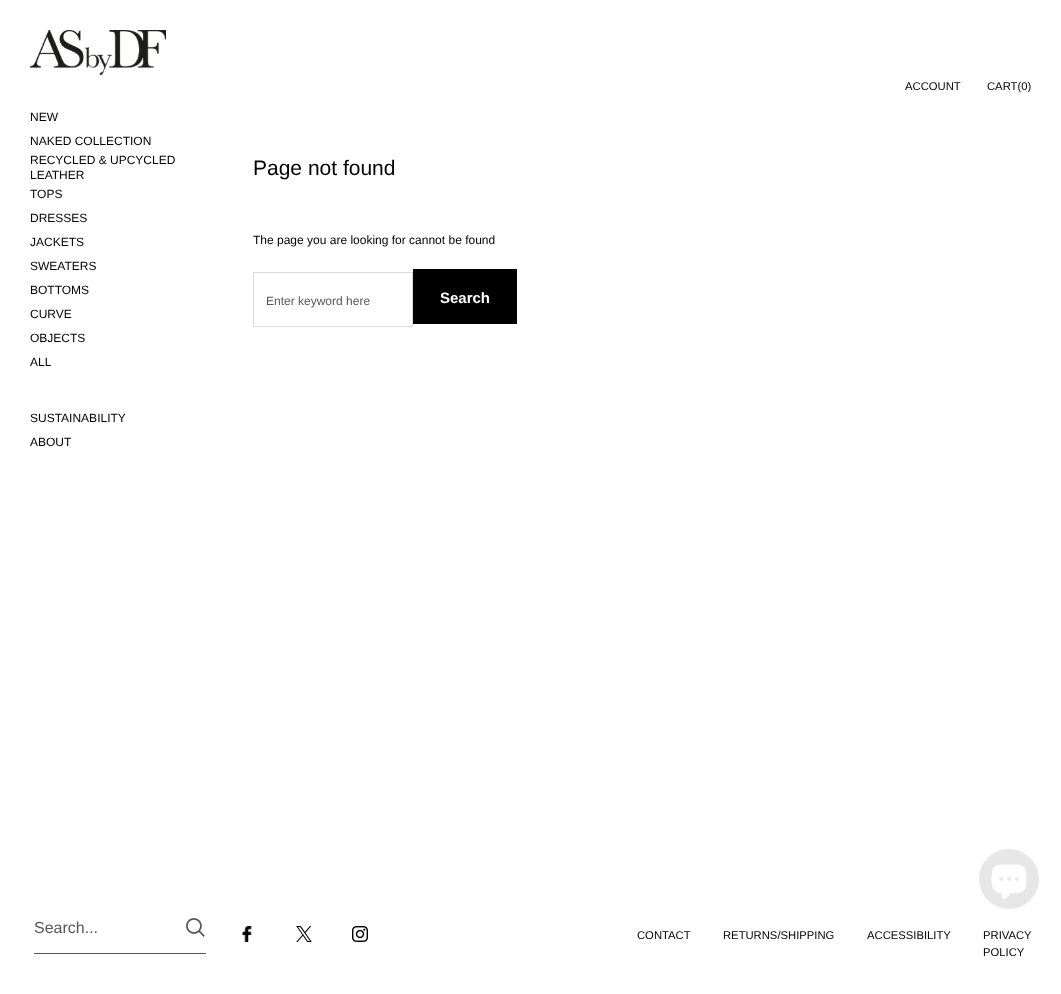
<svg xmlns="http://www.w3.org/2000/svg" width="1061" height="994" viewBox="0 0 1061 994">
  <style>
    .t1 { font: 12px Liberation Sans; fill: #000; }
    .t2 { font: 16px Liberation Sans; fill: #575757; }
    .t3 { font: 11.25px Liberation Sans; fill: #000; }
    .t4 { font: 21px Liberation Sans; fill: #000; }
    .t5 { font: 12px Liberation Sans; fill: #575757; }
    .t6 { font: bold 15px Liberation Sans; fill: #fff; }
  </style>
  <rect width="100%" height="100%" fill="#fff"/>
  <image x="30" y="30" width="136" height="46" href="images/1.png"/>
  <text x="30" y="121" class="t1">NEW</text>
  <text x="30" y="145" class="t1">NAKED COLLECTION</text>
  <text x="30" y="164" class="t1">RECYCLED &amp; UPCYCLED</text>
  <text x="30" y="179" class="t1">LEATHER</text>
  <text x="30" y="198" class="t1">TOPS</text>
  <text x="30" y="222" class="t1">DRESSES</text>
  <text x="30" y="246" class="t1">JACKETS</text>
  <text x="30" y="270" class="t1">SWEATERS</text>
  <text x="30" y="294" class="t1">BOTTOMS</text>
  <text x="30" y="318" class="t1">CURVE</text>
  <text x="30" y="342" class="t1">OBJECTS</text>
  <text x="30" y="366" class="t1">ALL</text>
  <text x="30" y="422" class="t1">SUSTAINABILITY</text>
  <text x="30" y="446" class="t1">ABOUT</text>
  <rect x="34" y="953" width="172" height="1" fill="#575757"/>
  <text x="34" y="933" class="t2">Search...</text>
  <image x="186" y="918" width="19" height="19" href="images/2.png"/>
  <text x="905" y="90" class="t3">ACCOUNT</text>
  <text x="987" y="90" class="t3">CART(0)</text>
  <text x="253" y="175" class="t4">Page not found</text>
  <text x="253" y="244" class="t1">The page you are looking for cannot be found</text>
  <rect x="253.5" y="272.5" width="159" height="54" fill="none" stroke="#dbdbdb"/>
  <text x="266" y="305" class="t5">Enter keyword here</text>
  <rect x="413" y="269" width="104" height="55" fill="#000"/>
  <text x="440" y="303" class="t6">Search</text>
  <image x="241" y="926" width="11" height="16" href="images/3.png"/>
  <image x="296" y="926" width="16" height="16" href="images/4.png"/>
  <image x="352" y="926" width="16" height="16" href="images/5.png"/>
  <text x="637" y="939" class="t3">CONTACT</text>
  <text x="723" y="939" class="t3">RETURNS/SHIPPING</text>
  <text x="867" y="939" class="t3">ACCESSIBILITY</text>
  <text x="983" y="939" class="t3">PRIVACY</text>
  <text x="983" y="956" class="t3">POLICY</text>
  <circle cx="1009" cy="879" r="30" fill="#e7e7e7"/>
  <image x="991" y="864" width="36" height="36" href="images/6.png"/>
</svg>
